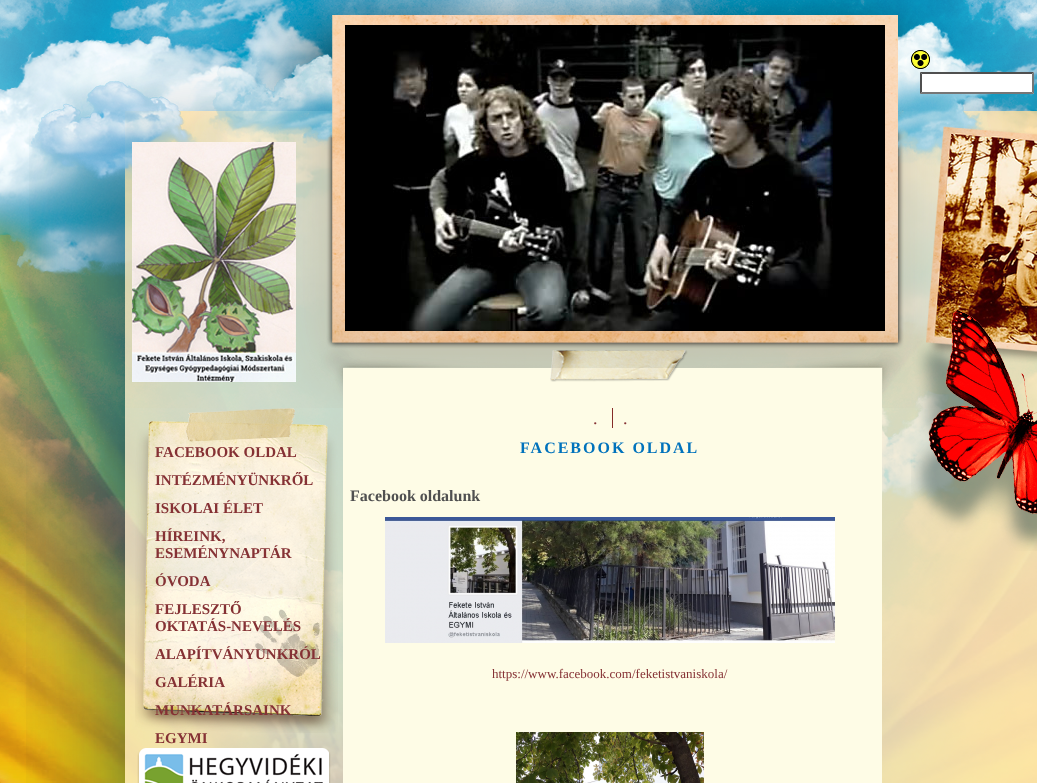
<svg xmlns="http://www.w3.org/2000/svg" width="1037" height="783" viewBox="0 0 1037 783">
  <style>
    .t1 { font: bold 15px Liberation Serif; fill: #853134; }
    .t2 { font: 18px Liberation Serif; fill: #853134; }
    .t3 { font: bold 16px Liberation Serif; letter-spacing: 2px; fill: #0072bc; }
    .t4 { font: bold 16px Liberation Serif; fill: #505050; }
    .t5 { font: 13px Liberation Serif; fill: #853134; }
  </style>
  <rect width="100%" height="100%" fill="#fff"/>
  <image x="0" y="34" width="1037" height="749" href="images/1.png"/>
  <image x="0" y="0" width="1037" height="783" href="images/2.png"/>
  <image x="29" y="0" width="1008" height="408" href="images/3.png"/>
  <image x="393" y="25" width="440" height="306" href="images/4.png"/>
  <image x="911" y="50" width="19" height="19" href="images/5.png"/>
  <rect x="920" y="72" width="114" height="22" fill="#fff"/>
  <path d="M920 72H1034L1032 74H922Z" fill="#4f4f4f"/>
  <path d="M1034 72V94L1032 92V74Z" fill="#767676"/>
  <path d="M1034 94H920L922 92H1032Z" fill="#767676"/>
  <path d="M920 94V72L922 74V92Z" fill="#4f4f4f"/>
  <image x="132" y="142" width="164" height="240" href="images/6.png"/>
  <image x="26" y="408" width="1011" height="375" href="images/8.png"/>
  <image x="911" y="126" width="126" height="425" href="images/7.png"/>
  <image x="135" y="408" width="203" height="325" href="images/9.png"/>
  <text x="155" y="457" class="t1">FACEBOOK OLDAL</text>
  <text x="155" y="485" class="t1">INTÉZMÉNYÜNKRŐL</text>
  <text x="155" y="513" class="t1">ISKOLAI ÉLET</text>
  <text x="155" y="541" class="t1">HÍREINK,</text>
  <text x="155" y="558" class="t1">ESEMÉNYNAPTÁR</text>
  <text x="155" y="586" class="t1">ÓVODA</text>
  <text x="155" y="614" class="t1">FEJLESZTŐ</text>
  <text x="155" y="631" class="t1">OKTATÁS-NEVELÉS</text>
  <text x="155" y="659" class="t1">ALAPÍTVÁNYUNKRÓL</text>
  <text x="155" y="687" class="t1">GALÉRIA</text>
  <text x="155" y="715" class="t1">MUNKATÁRSAINK</text>
  <text x="155" y="743" class="t1">EGYMI</text>
  <image x="137" y="748" width="194" height="35" href="images/10.png"/>
  <text x="593" y="424" class="t2">.</text>
  <rect x="612" y="408" width="1" height="20" fill="#852b28"/>
  <text x="623" y="424" class="t2">.</text>
  <text x="520" y="453" class="t3">FACEBOOK OLDAL</text>
  <text x="350" y="501" class="t4">Facebook oldalunk</text>
  <image x="385" y="517" width="450" height="126" href="images/11.png"/>
  <text x="492" y="678" class="t5">https://www.facebook.com/feketistvaniskola/</text>
  <image x="516" y="732" width="188" height="51" href="images/12.png"/>
</svg>
